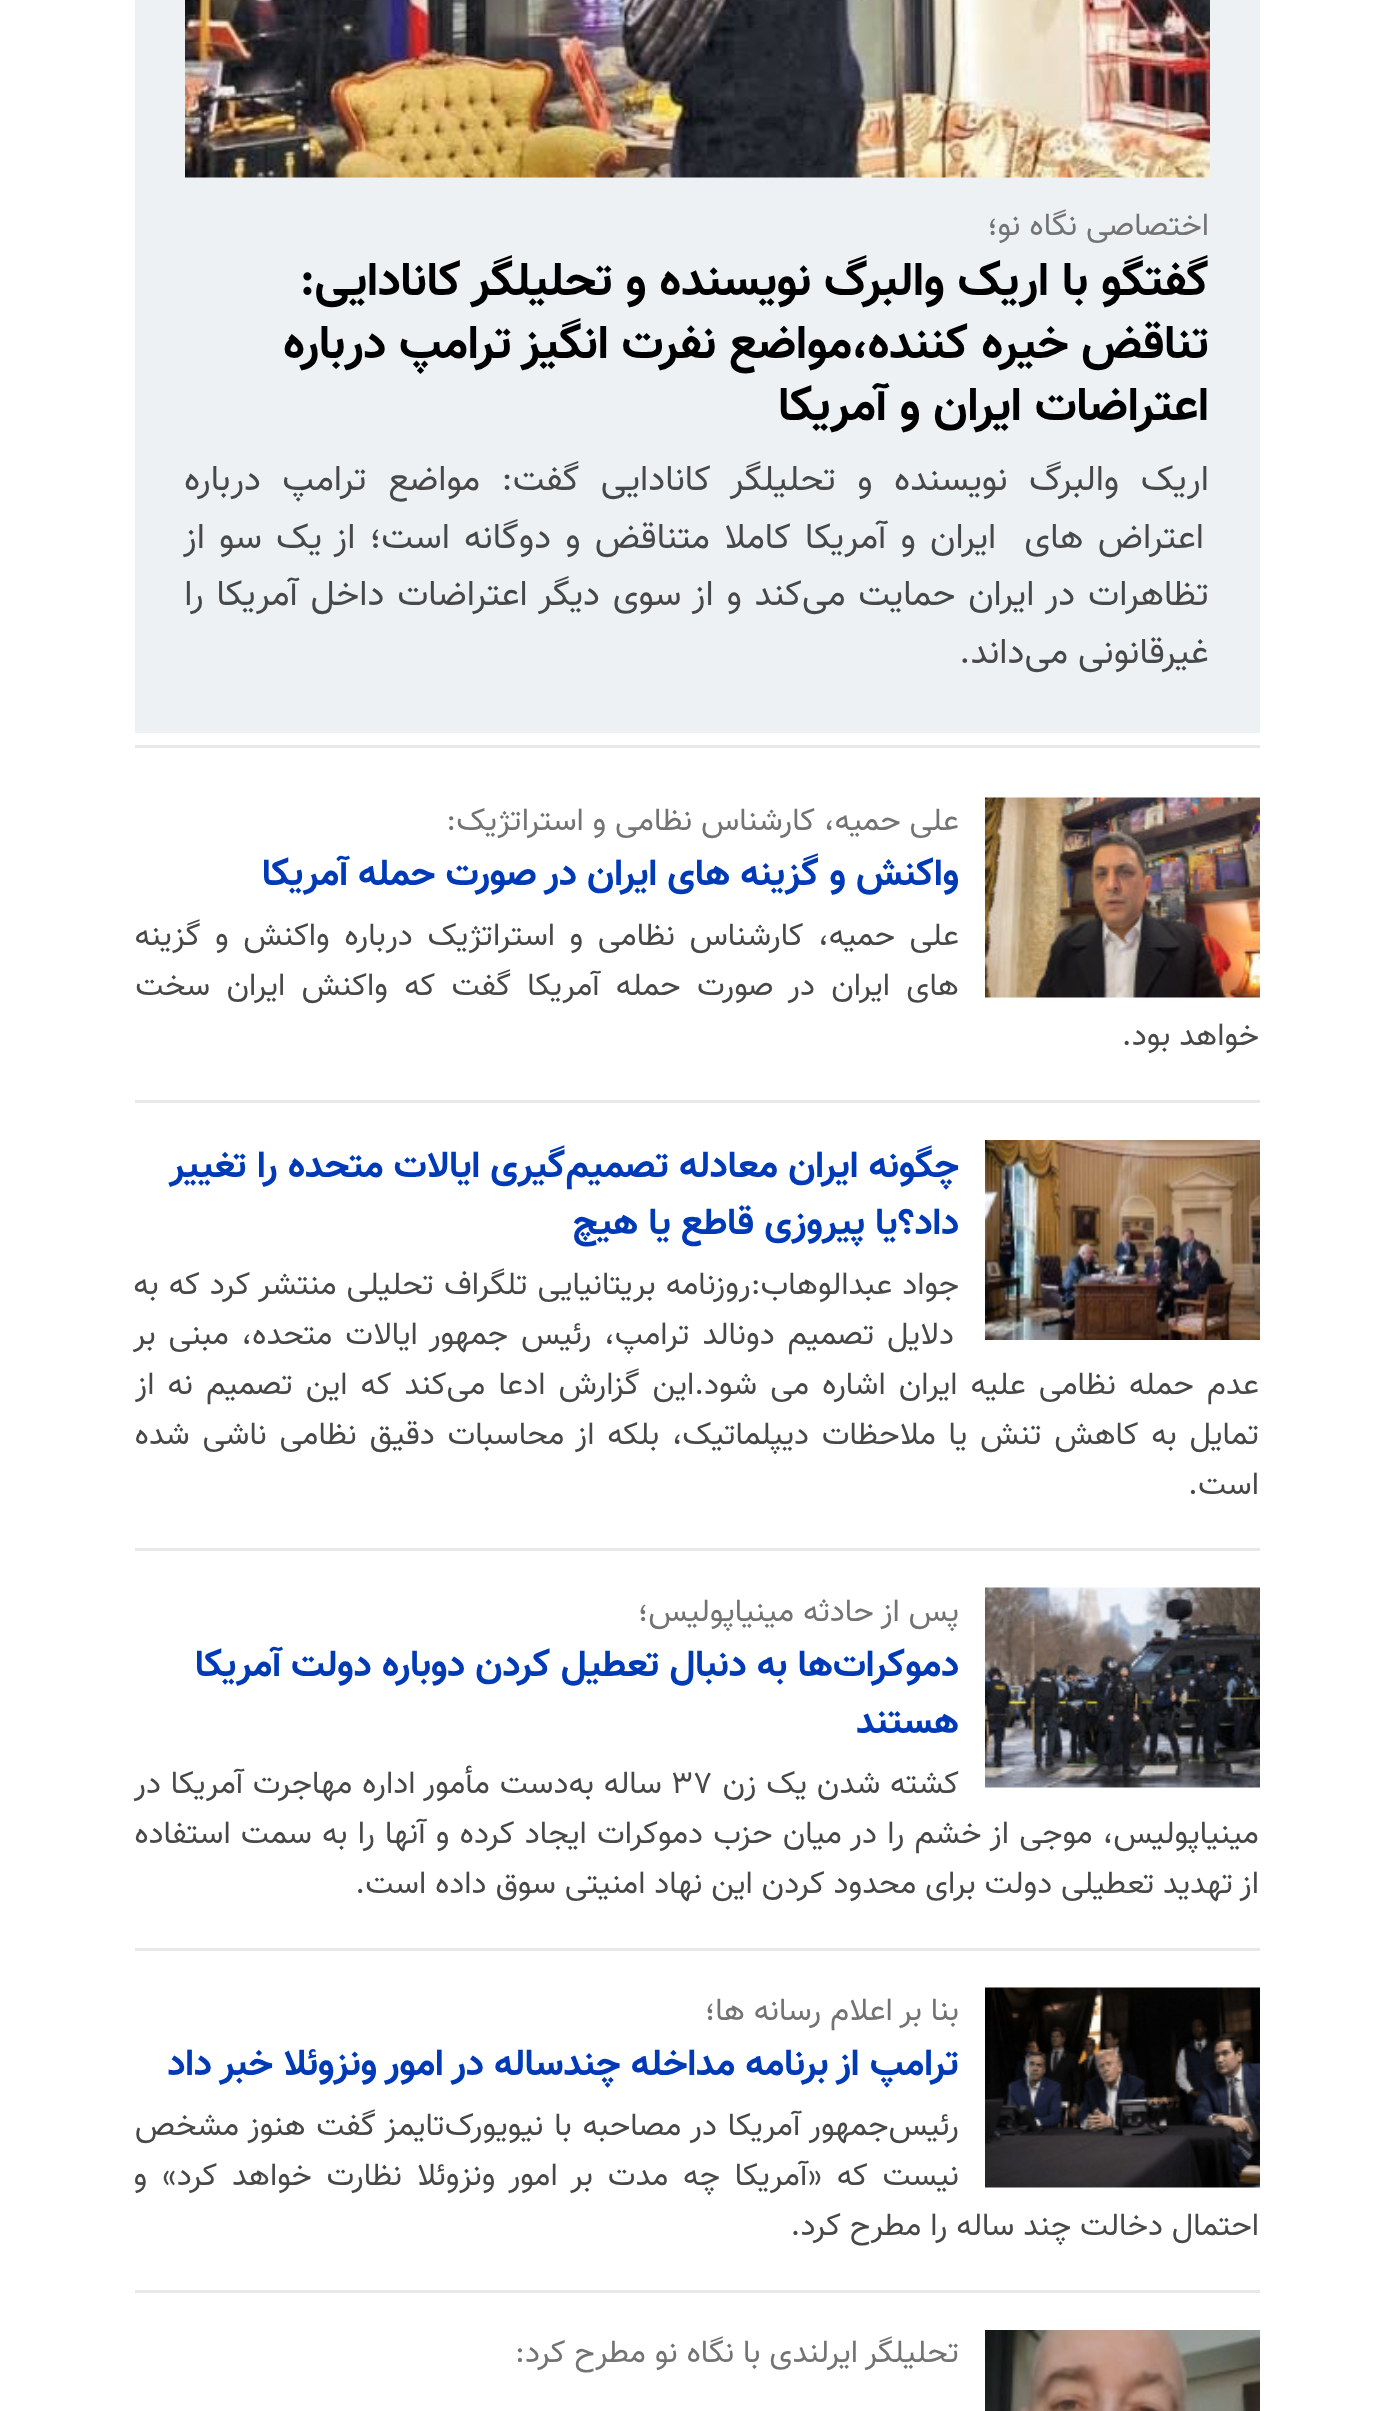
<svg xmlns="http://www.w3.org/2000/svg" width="1391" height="2411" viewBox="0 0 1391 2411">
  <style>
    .t1 { font: 32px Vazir; direction: rtl; fill: #737373; }
    .t2 { font: bold 48px Vazir; direction: rtl; fill: #000; }
    .t3 { font: 36px Vazir; direction: rtl; fill: #484848; }
    .t4 { font: bold 38px Vazir; direction: rtl; fill: #003ab6; }
    .t5 { font: 32px Vazir; direction: rtl; fill: #484848; }
    .t6 { font: 32px Vazir; fill: #484848; }
  </style>
  <rect width="100%" height="100%" fill="#fff"/>
  <rect x="135" y="0" width="1125" height="733" fill="#edf1f4"/>
  <image x="185" y="0" width="1025" height="178" href="images/1.png"/>
  <text x="1209" y="235" class="t1">اختصاصی نگاه نو؛</text>
  <text x="1209" y="295" class="t2">گفتگو با اریک والبرگ نویسنده و تحلیلگر کانادایی:</text>
  <text x="1209" y="358" class="t2">تناقض خیره کننده،مواضع نفرت انگیز ترامپ درباره</text>
  <text x="1209" y="420" class="t2">اعتراضات ایران و آمریکا</text>
  <text x="1209" y="490" word-spacing="11.5" class="t3">اریک والبرگ نویسنده و تحلیلگر کانادایی گفت: مواضع ترامپ درباره</text>
  <text x="1204" y="548" word-spacing="4.25" class="t3" xml:space="preserve">اعتراض های  ایران و آمریکا کاملا متناقض و دوگانه است؛ از یک سو از</text>
  <text x="1209" y="605" word-spacing="2.9" class="t3">تظاهرات در ایران حمایت می‌کند و از سوی دیگر اعتراضات داخل آمریکا را</text>
  <text x="1209" y="663" class="t3">غیرقانونی می‌داند.</text>
  <rect x="135" y="745" width="1125" height="3" fill="#e8e8e8"/>
  <rect x="135" y="1100" width="1125" height="3" fill="#e8e8e8"/>
  <image x="985" y="797" width="275" height="201" href="images/2.png"/>
  <text x="959" y="830" class="t1">علی حمیه، کارشناس نظامی و استراتژیک:</text>
  <text x="959" y="885" class="t4">واکنش و گزینه های ایران در صورت حمله آمریکا</text>
  <text x="959" y="945" word-spacing="5.75" class="t5">علی حمیه، کارشناس نظامی و استراتژیک درباره واکنش و گزینه</text>
  <text x="959" y="995" word-spacing="7.5" class="t5">های ایران در صورت حمله آمریکا گفت که واکنش ایران سخت</text>
  <text x="1259" y="1045" class="t5">خواهد بود.</text>
  <rect x="135" y="1548" width="1125" height="3" fill="#e8e8e8"/>
  <image x="985" y="1140" width="275" height="200" href="images/3.png"/>
  <text x="959" y="1177" class="t4">چگونه ایران معادله تصمیم‌گیری ایالات متحده را تغییر</text>
  <text x="959" y="1234" class="t4">داد؟یا پیروزی قاطع یا هیچ</text>
  <text x="959" y="1294" word-spacing="1.25" class="t5">جواد عبدالوهاب:روزنامه بریتانیایی تلگراف تحلیلی منتشر کرد که به</text>
  <text x="954" y="1344" word-spacing="4" class="t5">دلایل تصمیم دونالد ترامپ، رئیس جمهور ایالات متحده، مبنی بر</text>
  <text x="1259" y="1394" word-spacing="4.25" class="t5">عدم حمله نظامی علیه ایران اشاره می شود.این گزارش ادعا می‌کند که این تصمیم نه از</text>
  <text x="1259" y="1444" word-spacing="4" class="t5">تمایل به کاهش تنش یا ملاحظات دیپلماتیک، بلکه از محاسبات دقیق نظامی ناشی شده</text>
  <text x="1259" y="1494" class="t5">است.</text>
  <rect x="135" y="1948" width="1125" height="3" fill="#e8e8e8"/>
  <image x="985" y="1587" width="275" height="201" href="images/4.png"/>
  <text x="959" y="1621" class="t1">پس از حادثه مینیاپولیس؛</text>
  <text x="959" y="1676" class="t4">دموکرات‌ها به دنبال تعطیل کردن دوباره دولت آمریکا</text>
  <text x="959" y="1733" class="t4">هستند</text>
  <text x="959" y="1793" word-spacing="1" class="t5">کشته شدن یک زن</text>
  <text x="671" y="1793" class="t6">۳۷</text>
  <text x="662" y="1793" word-spacing="1" class="t5">ساله به‌دست مأمور اداره مهاجرت آمریکا در</text>
  <text x="1259" y="1843" word-spacing="1.4" class="t5">مینیاپولیس، موجی از خشم را در میان حزب دموکرات‌ ایجاد کرده و آنها را به سمت استفاده</text>
  <text x="1259" y="1893" class="t5">از تهدید تعطیلی دولت برای محدود کردن این نهاد امنیتی سوق داده است.</text>
  <rect x="135" y="2290" width="1125" height="3" fill="#e8e8e8"/>
  <image x="985" y="1987" width="275" height="201" href="images/5.png"/>
  <text x="959" y="2020" class="t1">بنا بر اعلام رسانه ها؛</text>
  <text x="959" y="2075" class="t4">ترامپ از برنامه مداخله چندساله در امور ونزوئلا خبر داد</text>
  <text x="959" y="2135" word-spacing="2" class="t5">رئیس‌جمهور آمریکا در مصاحبه با نیویورک‌تایمز گفت هنوز مشخص</text>
  <text x="959" y="2185" word-spacing="6" class="t5">نیست که «آمریکا چه مدت بر امور ونزوئلا نظارت خواهد کرد» و</text>
  <text x="1259" y="2235" class="t5">احتمال دخالت چند ساله را مطرح کرد.</text>
  <image x="985" y="2330" width="275" height="81" href="images/6.png"/>
  <text x="959" y="2362" class="t1">تحلیلگر ایرلندی با نگاه نو مطرح کرد:</text>
</svg>
